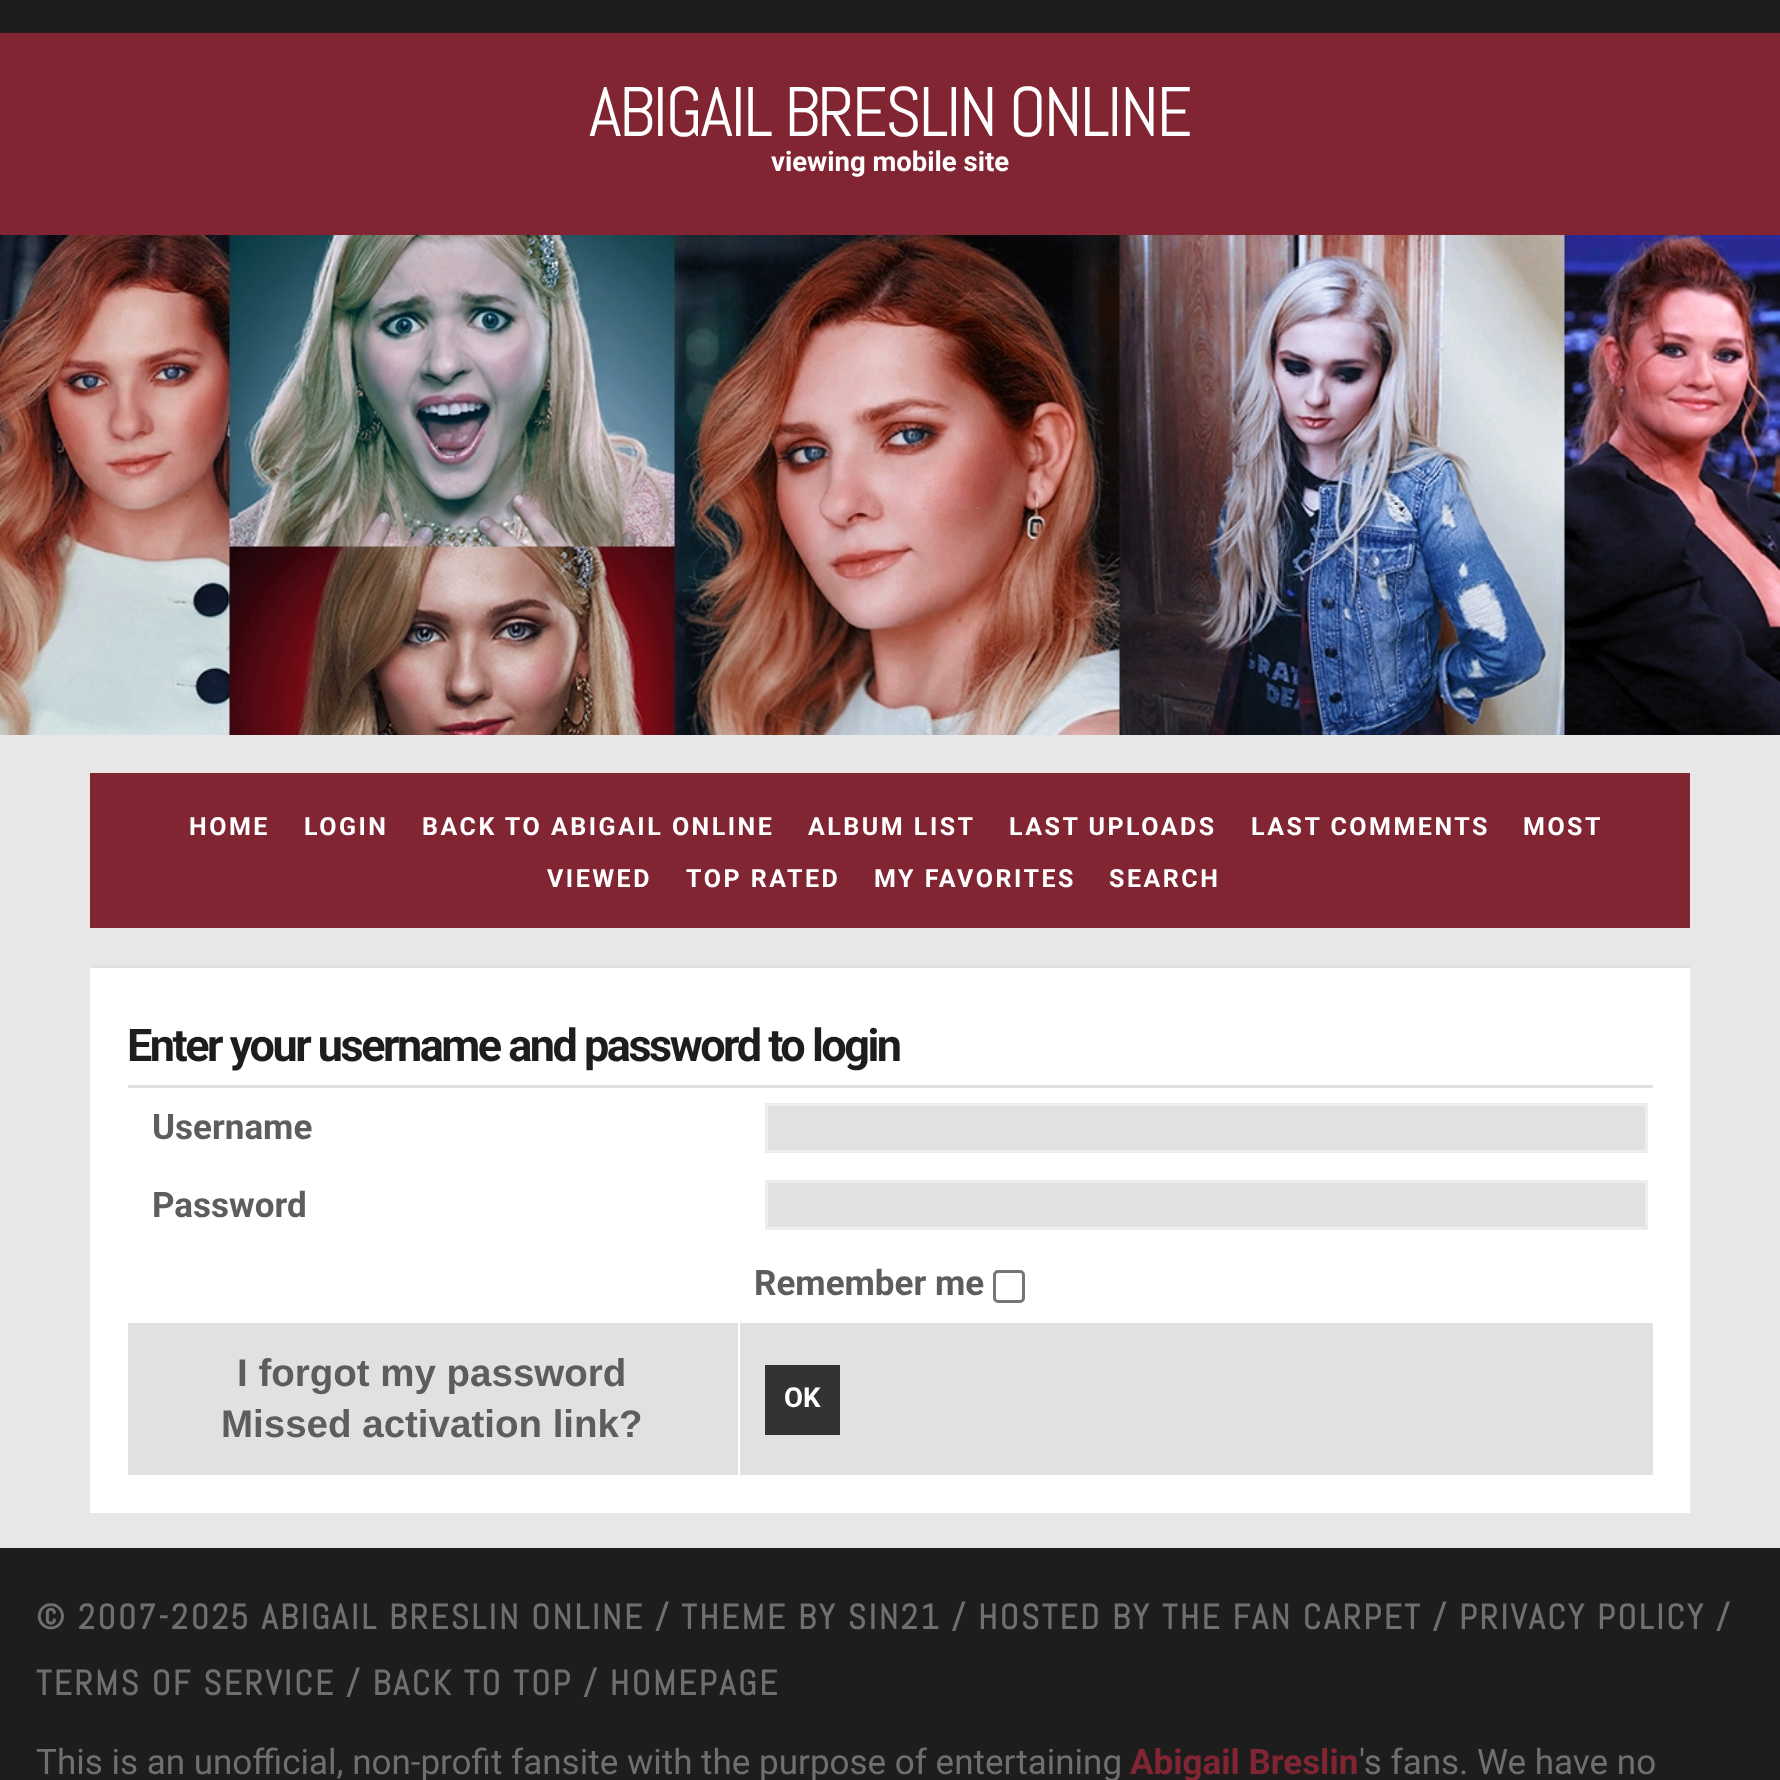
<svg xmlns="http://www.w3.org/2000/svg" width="1780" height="1780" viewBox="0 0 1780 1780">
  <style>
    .t1 { font: 70px Abel; letter-spacing: -2.5px; fill: #fff; }
    .t2 { font: bold 27.5px Roboto; fill: #fff; }
    .t3 { font: bold 25px Roboto; letter-spacing: 2.5px; fill: #fff; }
    .t4 { font: bold 45px Roboto; letter-spacing: -2.5px; fill: #1d1d1d; }
    .t5 { font: bold 35px Roboto; fill: #5d5d5d; }
    .t6 { font: bold 38.5px Liberation Sans; fill: #5d5d5d; }
    .t7 { font: bold 35px Abel; letter-spacing: 2.5px; fill: #6f6f6f; }
    .t8 { font: 35px Roboto; fill: #6f6f6f; }
    .t9 { font: bold 35px Roboto; fill: #812533; }
  </style>
  <rect width="100%" height="100%" fill="#e7e7e7"/>
  <rect x="0" y="0" width="1780" height="33" fill="#1d1d1d"/>
  <rect x="0" y="33" width="1780" height="202" fill="#812533"/>
  <text x="589" y="136" class="t1">ABIGAIL BRESLIN ONLINE</text>
  <text x="771" y="171" class="t2">viewing mobile site</text>
  <image x="0" y="235" width="1780" height="500" href="images/1.png"/>
  <rect x="90" y="773" width="1600" height="155" fill="#812533"/>
  <text x="189" y="835" class="t3">HOME</text>
  <text x="304" y="835" class="t3">LOGIN</text>
  <text x="422" y="835" class="t3">BACK TO ABIGAIL ONLINE</text>
  <text x="808" y="835" class="t3">ALBUM LIST</text>
  <text x="1009" y="835" class="t3">LAST UPLOADS</text>
  <text x="1251" y="835" class="t3">LAST COMMENTS</text>
  <text x="1523" y="835" class="t3">MOST</text>
  <text x="547" y="887" class="t3">VIEWED</text>
  <text x="686" y="887" class="t3">TOP RATED</text>
  <text x="874" y="887" class="t3">MY FAVORITES</text>
  <text x="1109" y="887" class="t3">SEARCH</text>
  <rect x="90" y="968" width="1600" height="545" fill="#fff"/>
  <rect x="90" y="965" width="1600" height="3" fill="#e1e1e1"/>
  <rect x="128" y="1085" width="1525" height="3" fill="#e0e0e0"/>
  <text x="127" y="1061" class="t4">Enter your username and password to login</text>
  <text x="152" y="1139" class="t5">Username</text>
  <rect x="766.5" y="1104.5" width="880" height="47" fill="#e1e1e1" stroke="#ededed" stroke-width="3"/>
  <text x="152" y="1217" class="t5">Password</text>
  <rect x="766.5" y="1181.5" width="880" height="47" fill="#e1e1e1" stroke="#ededed" stroke-width="3"/>
  <text x="754" y="1295" class="t5">Remember me</text>
  <rect x="994.5" y="1271.5" width="29" height="30" rx="3.5" fill="none" stroke="#767676" stroke-width="3"/>
  <rect x="128" y="1323" width="610" height="152" fill="#e1e1e1"/>
  <text x="237" y="1386" class="t6">I forgot my password</text>
  <text x="221" y="1437" class="t6">Missed activation link?</text>
  <rect x="740" y="1323" width="913" height="152" fill="#e1e1e1"/>
  <rect x="765" y="1365" width="75" height="70" fill="#333"/>
  <text x="784" y="1407" class="t2">OK</text>
  <rect x="0" y="1548" width="1780" height="232" fill="#1d1d1d"/>
  <text x="36" y="1629" class="t7">© 2007-2025 ABIGAIL BRESLIN ONLINE / THEME BY SIN21 / HOSTED BY THE FAN CARPET / PRIVACY POLICY /</text>
  <text x="36" y="1695" class="t7">TERMS OF SERVICE / BACK TO TOP / HOMEPAGE</text>
  <text x="36" y="1774" class="t8">This is an unofficial, non-profit fansite with the purpose of entertaining</text>
  <text x="1130" y="1774" class="t9">Abigail Breslin</text>
  <text x="1359" y="1774" class="t8">'s fans. We have no</text>
</svg>
